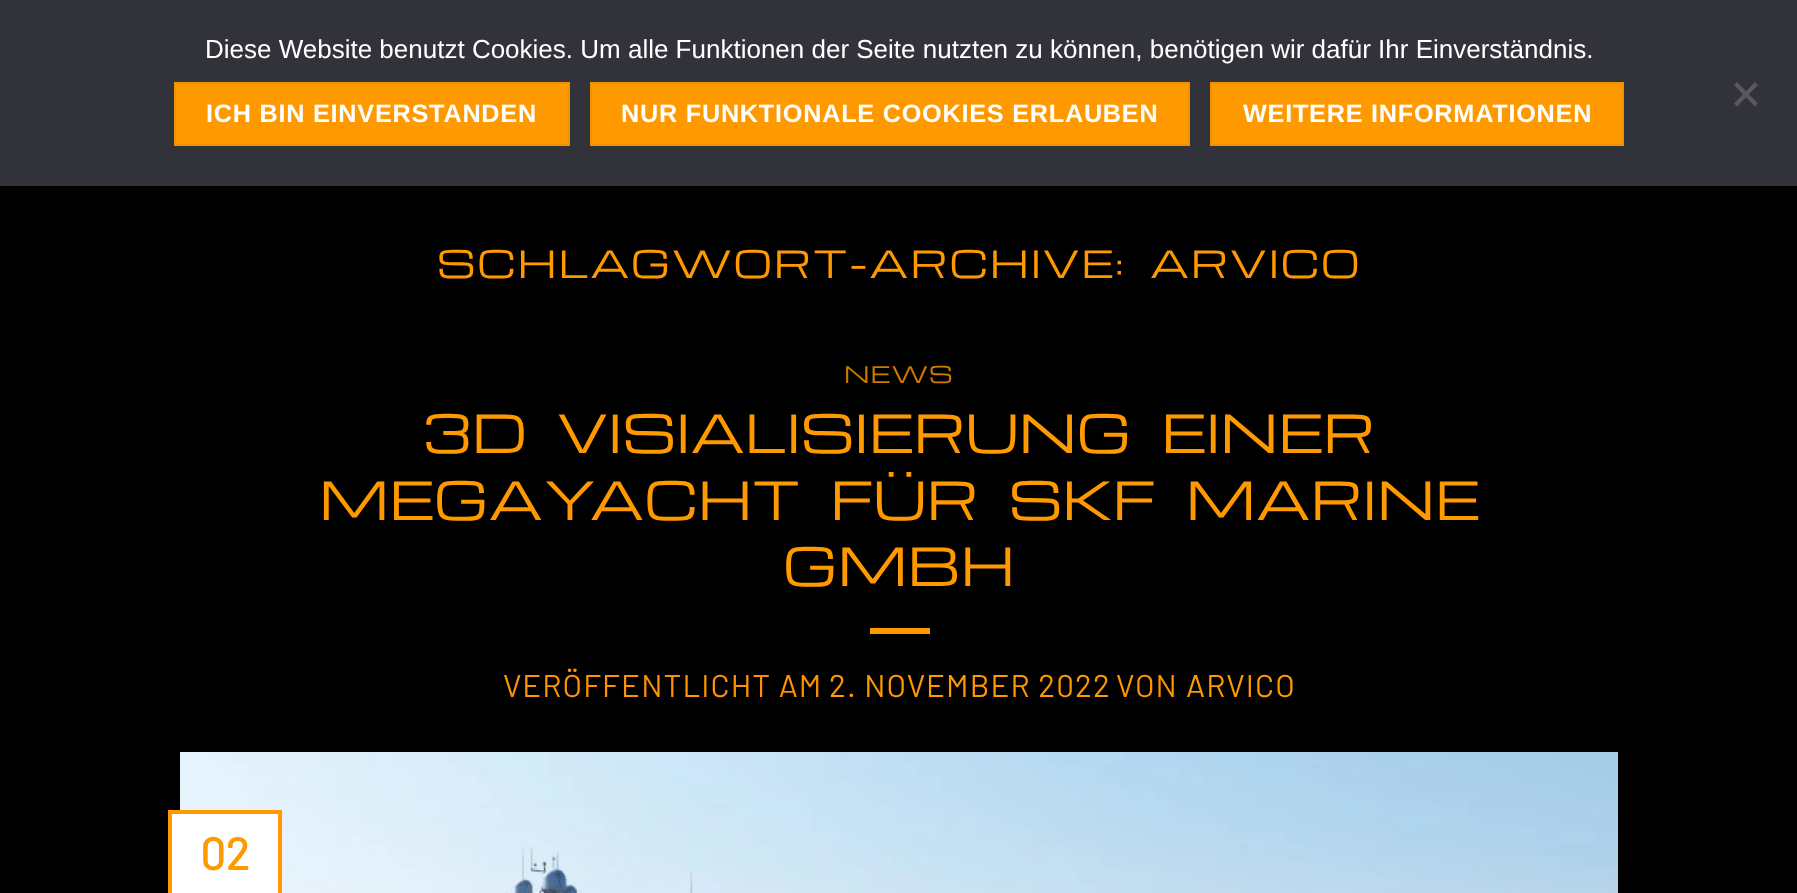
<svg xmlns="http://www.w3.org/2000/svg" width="1797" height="893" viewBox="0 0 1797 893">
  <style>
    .t1 { font: 26px Liberation Sans; fill: #fff; }
    .t2 { font: bold 25.25px Liberation Sans; letter-spacing: 0.75px; fill: #fff; }
    .t3 { font: 36.75px Michroma; letter-spacing: 1.8px; fill: #f90; }
    .t4 { font: 22.5px Michroma; letter-spacing: 1.1px; fill: #cc7a00; }
    .t5 { font: 51.2px Michroma; fill: #f90; }
    .t6 { font: 31.4px Barlow; letter-spacing: 1.1px; fill: #ff9200; }
    .t7 { font: 31.4px Barlow; letter-spacing: 1.1px; fill: #f90; }
    .t8 { font: bold 45px Barlow; fill: #f90; }
  </style>
  <rect width="100%" height="100%" fill="#000"/>
  <rect x="0" y="0" width="1797" height="186" fill="#32323a"/>
  <text x="205" y="58" class="t1">Diese Website benutzt Cookies. Um alle Funktionen der Seite nutzten zu können, benötigen wir dafür Ihr Einverständnis.</text>
  <path d="M1755 82L1758 85L1737 106.5L1734 103.5Z" fill="#59595d"/>
  <path d="M1734 85L1737 82L1758 103.5L1755 106.5Z" fill="#59595d"/>
  <rect x="175" y="83" width="394" height="62" fill="#f90" stroke="#f29100" stroke-width="2"/>
  <text x="206" y="122" class="t2">ICH BIN EINVERSTANDEN</text>
  <rect x="591" y="83" width="598" height="62" fill="#f90" stroke="#f29100" stroke-width="2"/>
  <text x="621" y="122" class="t2">NUR FUNKTIONALE COOKIES ERLAUBEN</text>
  <rect x="1211" y="83" width="412" height="62" fill="#f90" stroke="#f29100" stroke-width="2"/>
  <text x="1243" y="122" class="t2">WEITERE INFORMATIONEN</text>
  <text x="437" y="278" class="t3">SCHLAGWORT-ARCHIVE:</text>
  <text x="1150" y="278" class="t3">ARVICO</text>
  <text x="844" y="383" class="t4">NEWS</text>
  <text x="423" y="453" word-spacing="15.5" class="t5">3D VISIALISIERUNG EINER</text>
  <text x="319" y="520" word-spacing="15.5" class="t5">MEGAYACHT FÜR SKF MARINE</text>
  <text x="783" y="586" class="t5">GMBH</text>
  <rect x="870" y="628" width="60" height="6" fill="#f90"/>
  <text x="503" y="697" class="t6">VERÖFFENTLICHT AM</text>
  <text x="829" y="697" class="t7">2. NOVEMBER 2022</text>
  <text x="1116" y="697" class="t6">VON</text>
  <text x="1186" y="697" class="t7">ARVICO</text>
  <image x="180" y="752" width="1438" height="141" href="images/1.png"/>
  <rect x="170" y="812" width="110" height="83" fill="#fff" stroke="#f90" stroke-width="4"/>
  <text x="200" y="870" class="t8">02</text>
</svg>
